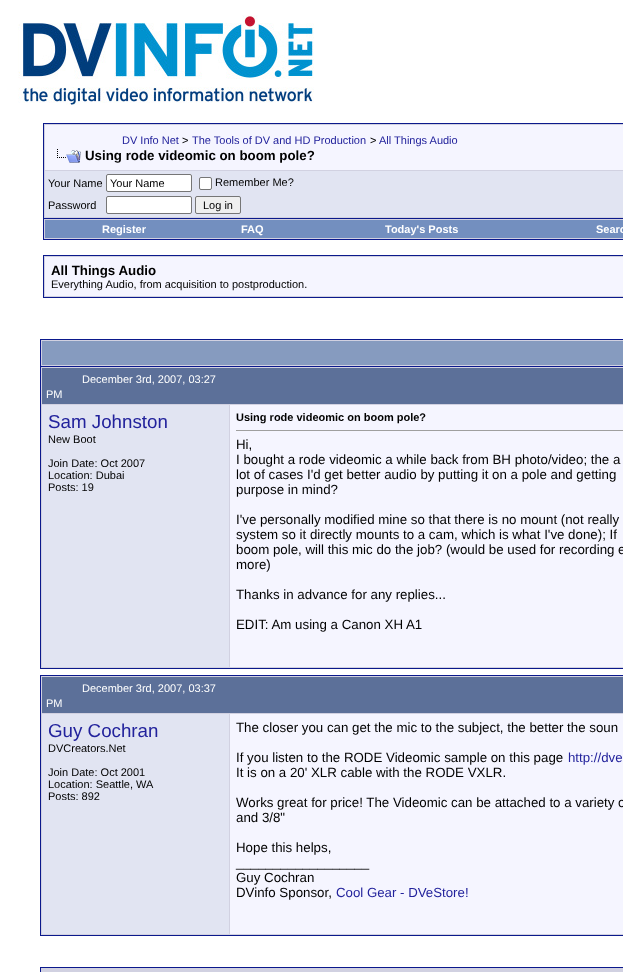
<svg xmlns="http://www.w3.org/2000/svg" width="623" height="972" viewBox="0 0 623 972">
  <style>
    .t1 { font: 11px Liberation Sans; fill: #22229c; }
    .t2 { font: 11px Liberation Sans; fill: #000; }
    .t3 { font: bold 13.3px Liberation Sans; fill: #000; }
    .t4 { font: bold 11px Liberation Sans; fill: #fff; }
    .t5 { font: 11px Liberation Sans; fill: #fff; }
    .t6 { font: 18.75px Liberation Sans; fill: #22229c; }
    .t7 { font: bold 11px Liberation Sans; fill: #000; }
    .t8 { font: 13.3px Liberation Sans; fill: #000; }
    .t9 { font: 13.25px Liberation Sans; fill: #22229c; }
  </style>
  <rect width="100%" height="100%" fill="#fff"/>
  <image x="18" y="15" width="296" height="90" href="images/1.png"/>
  <rect x="43.5" y="123.5" width="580" height="95" fill="#d1d1e1" stroke="#0b198c"/>
  <rect x="45" y="125" width="578" height="45" fill="#f5f5ff"/>
  <text x="122" y="144" class="t1">DV Info Net</text>
  <text x="182" y="144" class="t2">&gt;</text>
  <text x="192" y="144" class="t1">The Tools of DV and HD Production</text>
  <text x="370" y="144" class="t2">&gt;</text>
  <text x="379" y="144" class="t1">All Things Audio</text>
  <image x="57" y="149" width="24" height="14" href="images/2.png"/>
  <text x="85" y="160" class="t3">Using rode videomic on boom pole?</text>
  <rect x="45" y="171" width="578" height="46" fill="#e1e4f2"/>
  <text x="48" y="187" class="t2">Your Name</text>
  <rect x="106.5" y="174.5" width="85" height="17" rx="1.5" fill="#fff" stroke="#767676"/>
  <text x="110" y="187" class="t2">Your Name</text>
  <rect x="199.5" y="177.5" width="12" height="12" rx="1.5" fill="#fff" stroke="#767676"/>
  <text x="215" y="186" class="t2">Remember Me?</text>
  <text x="48" y="209" class="t2">Password</text>
  <rect x="106.5" y="196.5" width="85" height="17" rx="1.5" fill="#fff" stroke="#767676"/>
  <rect x="195.5" y="196.5" width="45" height="17" rx="1.5" fill="#efefef" stroke="#767676"/>
  <text x="203" y="209" class="t2">Log in</text>
  <rect x="44" y="219" width="579" height="20" fill="#d1d1e1"/>
  <rect x="43" y="239" width="580" height="1" fill="#0b198c"/>
  <rect x="43" y="219" width="1" height="21" fill="#0b198c"/>
  <rect x="45" y="220" width="578" height="18" fill="#738fbf"/>
  <text x="102" y="233" class="t4">Register</text>
  <text x="241" y="233" class="t4">FAQ</text>
  <text x="385" y="233" class="t4">Today's Posts</text>
  <text x="596" y="233" class="t4">Searc</text>
  <rect x="43.5" y="255.5" width="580" height="42" fill="#d1d1e1" stroke="#0b198c"/>
  <rect x="45" y="257" width="578" height="39" fill="#f5f5ff"/>
  <text x="51" y="275" class="t3">All Things Audio</text>
  <text x="51" y="288" class="t2">Everything Audio, from acquisition to postproduction.</text>
  <rect x="41" y="340" width="582" height="26" fill="#d1d1e1"/>
  <rect x="40" y="339" width="583" height="1" fill="#0b198c"/>
  <rect x="40" y="339" width="1" height="27" fill="#0b198c"/>
  <rect x="42" y="341" width="581" height="24" fill="#869bbf"/>
  <rect x="40.5" y="366.5" width="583" height="302" fill="none" stroke="#0b198c"/>
  <rect x="42" y="368" width="581" height="36" fill="#5c7099"/>
  <rect x="41" y="367" width="582" height="1" fill="#d1d1e1"/>
  <rect x="41" y="404" width="582" height="1" fill="#d1d1e1"/>
  <rect x="41" y="367" width="1" height="271" fill="#d1d1e1"/>
  <text x="82" y="383" class="t5">December 3rd, 2007, 03:27</text>
  <text x="46" y="398" class="t5">PM</text>
  <rect x="42" y="405" width="187" height="262" fill="#e1e4f2"/>
  <rect x="229" y="405" width="1" height="263" fill="#d1d1e1"/>
  <text x="48" y="428" class="t6">Sam Johnston</text>
  <text x="48" y="443" class="t2">New Boot</text>
  <text x="48" y="467" class="t2">Join Date: Oct 2007</text>
  <text x="48" y="479" class="t2">Location: Dubai</text>
  <text x="48" y="491" class="t2">Posts: 19</text>
  <rect x="230" y="405" width="393" height="262" fill="#f5f5ff"/>
  <text x="236" y="421" class="t7">Using rode videomic on boom pole?</text>
  <rect x="236" y="430" width="387" height="1" fill="#9f9f9f"/>
  <text x="236" y="449" class="t8">Hi,</text>
  <text x="236" y="464" class="t8">I bought a rode videomic a while back from BH photo/video; the a</text>
  <text x="236" y="479" class="t8">lot of cases I'd get better audio by putting it on a pole and getting</text>
  <text x="236" y="494" class="t8">purpose in mind?</text>
  <text x="236" y="524" class="t8">I've personally modified mine so that there is no mount (not really</text>
  <text x="236" y="539" class="t8">system so it directly mounts to a cam, which is what I've done); If</text>
  <text x="236" y="554" class="t8">boom pole, will this mic do the job? (would be used for recording e</text>
  <text x="236" y="569" class="t8">more)</text>
  <text x="236" y="599" class="t8">Thanks in advance for any replies...</text>
  <text x="236" y="629" class="t8">EDIT: Am using a Canon XH A1</text>
  <rect x="41" y="667" width="582" height="1" fill="#d1d1e1"/>
  <rect x="41" y="638" width="1" height="30" fill="#d1d1e1"/>
  <rect x="40.5" y="675.5" width="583" height="260" fill="none" stroke="#0b198c"/>
  <rect x="42" y="677" width="581" height="36" fill="#5c7099"/>
  <rect x="41" y="676" width="582" height="1" fill="#d1d1e1"/>
  <rect x="41" y="713" width="582" height="1" fill="#d1d1e1"/>
  <rect x="41" y="676" width="1" height="230" fill="#d1d1e1"/>
  <text x="82" y="692" class="t5">December 3rd, 2007, 03:37</text>
  <text x="46" y="707" class="t5">PM</text>
  <rect x="42" y="714" width="187" height="220" fill="#e1e4f2"/>
  <rect x="229" y="714" width="1" height="221" fill="#d1d1e1"/>
  <text x="48" y="737" class="t6">Guy Cochran</text>
  <text x="48" y="752" class="t2">DVCreators.Net</text>
  <text x="48" y="776" class="t2">Join Date: Oct 2001</text>
  <text x="48" y="788" class="t2">Location: Seattle, WA</text>
  <text x="48" y="800" class="t2">Posts: 892</text>
  <rect x="230" y="714" width="393" height="220" fill="#f5f5ff"/>
  <text x="236" y="732" class="t8">The closer you can get the mic to the subject, the better the soun</text>
  <text x="236" y="762" class="t8">If you listen to the RODE Videomic sample on this page</text>
  <text x="568" y="762" class="t9">http://dve</text>
  <text x="236" y="777" class="t8">It is on a 20' XLR cable with the RODE VXLR.</text>
  <text x="236" y="807" class="t8">Works great for price! The Videomic can be attached to a variety o</text>
  <text x="236" y="822" class="t8">and 3/8"</text>
  <text x="236" y="852" class="t8">Hope this helps,</text>
  <text x="236" y="867" class="t8">__________________</text>
  <text x="236" y="882" class="t8">Guy Cochran</text>
  <text x="236" y="897" class="t8">DVinfo Sponsor,</text>
  <text x="336" y="897" class="t9">Cool Gear - DVeStore!</text>
  <rect x="41" y="934" width="582" height="1" fill="#d1d1e1"/>
  <rect x="41" y="906" width="1" height="29" fill="#d1d1e1"/>
  <rect x="40.5" y="967.5" width="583" height="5" fill="#d1d1e1" stroke="#0b198c"/>
</svg>
